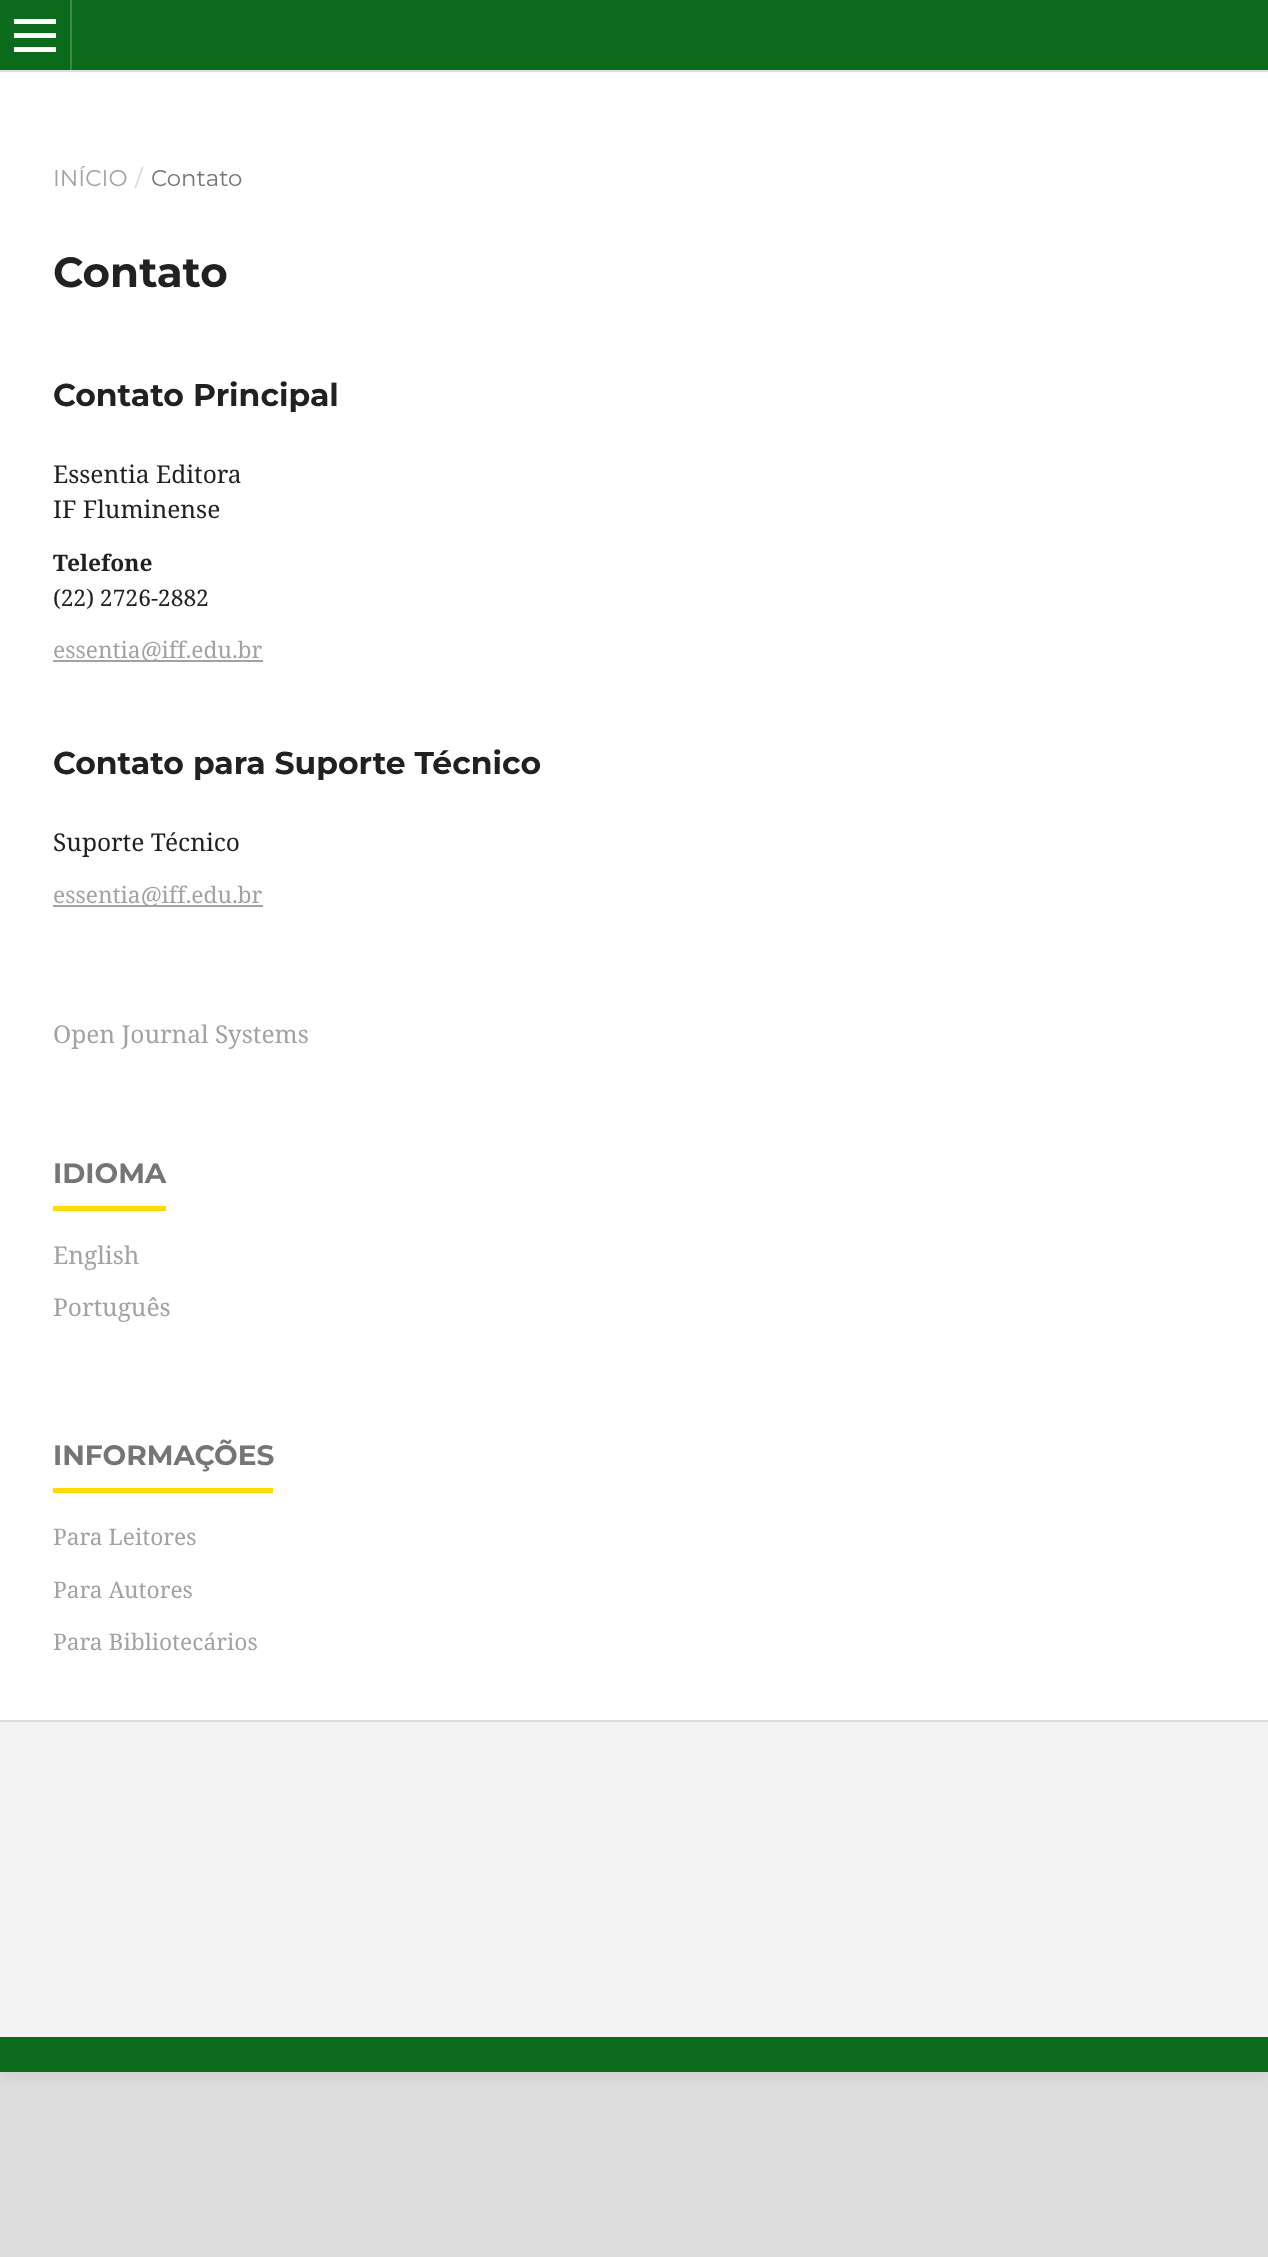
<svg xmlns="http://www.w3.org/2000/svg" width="1268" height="2257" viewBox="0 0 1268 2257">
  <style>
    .t1 { font: 22.75px Montserrat; fill: #a2a2a2; }
    .t2 { font: 22.75px Montserrat; fill: #d6d6d6; }
    .t3 { font: 22.75px Montserrat; fill: #757575; }
    .t4 { font: bold 42px Montserrat; fill: #212121; }
    .t5 { font: bold 31.5px Montserrat; fill: #212121; }
    .t6 { font: 24.5px Noto Serif; fill: #212121; }
    .t7 { font: bold 22.75px Noto Serif; fill: #212121; }
    .t8 { font: 22.75px Noto Serif; fill: #212121; }
    .t9 { font: 22.75px Noto Serif; fill: #a2a2a2; }
    .t10 { font: 24.5px Noto Serif; fill: #a2a2a2; }
    .t11 { font: bold 28px Montserrat; fill: #757575; }
  </style>
  <rect width="100%" height="100%" fill="#ddd"/>
  <rect x="0" y="0" width="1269" height="2072" fill="#0000001a" filter="blur(9px)"/>
  <rect x="0" y="72" width="1268" height="1648" fill="#fff"/>
  <rect x="0" y="0" width="1268" height="70" fill="#0c6a1c"/>
  <rect x="0" y="70" width="1268" height="2" fill="#ddd"/>
  <rect x="70" y="0" width="2" height="70" fill="#3d8849"/>
  <rect x="14" y="47" width="42" height="5" fill="#fff"/>
  <rect x="14" y="19" width="42" height="5" fill="#fff"/>
  <rect x="14" y="33" width="42" height="5" fill="#fff"/>
  <text x="53" y="186" class="t1">INÍCIO</text>
  <text x="135" y="186" class="t2">/</text>
  <text x="151" y="186" class="t3">Contato</text>
  <text x="53" y="287" class="t4">Contato</text>
  <text x="53" y="406" class="t5">Contato Principal</text>
  <text x="53" y="483" class="t6">Essentia Editora</text>
  <text x="53" y="518" class="t6">IF Fluminense</text>
  <text x="53" y="571" class="t7">Telefone</text>
  <text x="53" y="606" class="t8">(22) 2726-2882</text>
  <rect x="53" y="660" width="210" height="2" fill="#a2a2a2"/>
  <text x="53" y="658" class="t9">essentia@iff.edu.br</text>
  <text x="53" y="774" class="t5">Contato para Suporte Técnico</text>
  <text x="53" y="851" class="t6">Suporte Técnico</text>
  <rect x="53" y="905" width="210" height="2" fill="#a2a2a2"/>
  <text x="53" y="903" class="t9">essentia@iff.edu.br</text>
  <text x="53" y="1043" class="t10">Open Journal Systems</text>
  <rect x="53" y="1206" width="113" height="5" fill="#ffdc00"/>
  <text x="53" y="1183" class="t11">IDIOMA</text>
  <text x="53" y="1264" class="t10">English</text>
  <text x="53" y="1316" class="t10">Português</text>
  <rect x="53" y="1488" width="220" height="5" fill="#ffdc00"/>
  <text x="53" y="1465" class="t11">INFORMAÇÕES</text>
  <text x="53" y="1545" class="t9">Para Leitores</text>
  <text x="53" y="1598" class="t9">Para Autores</text>
  <text x="53" y="1650" class="t9">Para Bibliotecários</text>
  <rect x="0" y="1722" width="1268" height="315" fill="#f3f3f3"/>
  <rect x="0" y="1720" width="1268" height="2" fill="#ddd"/>
  <rect x="0" y="2037" width="1268" height="35" fill="#0c6a1c"/>
</svg>
